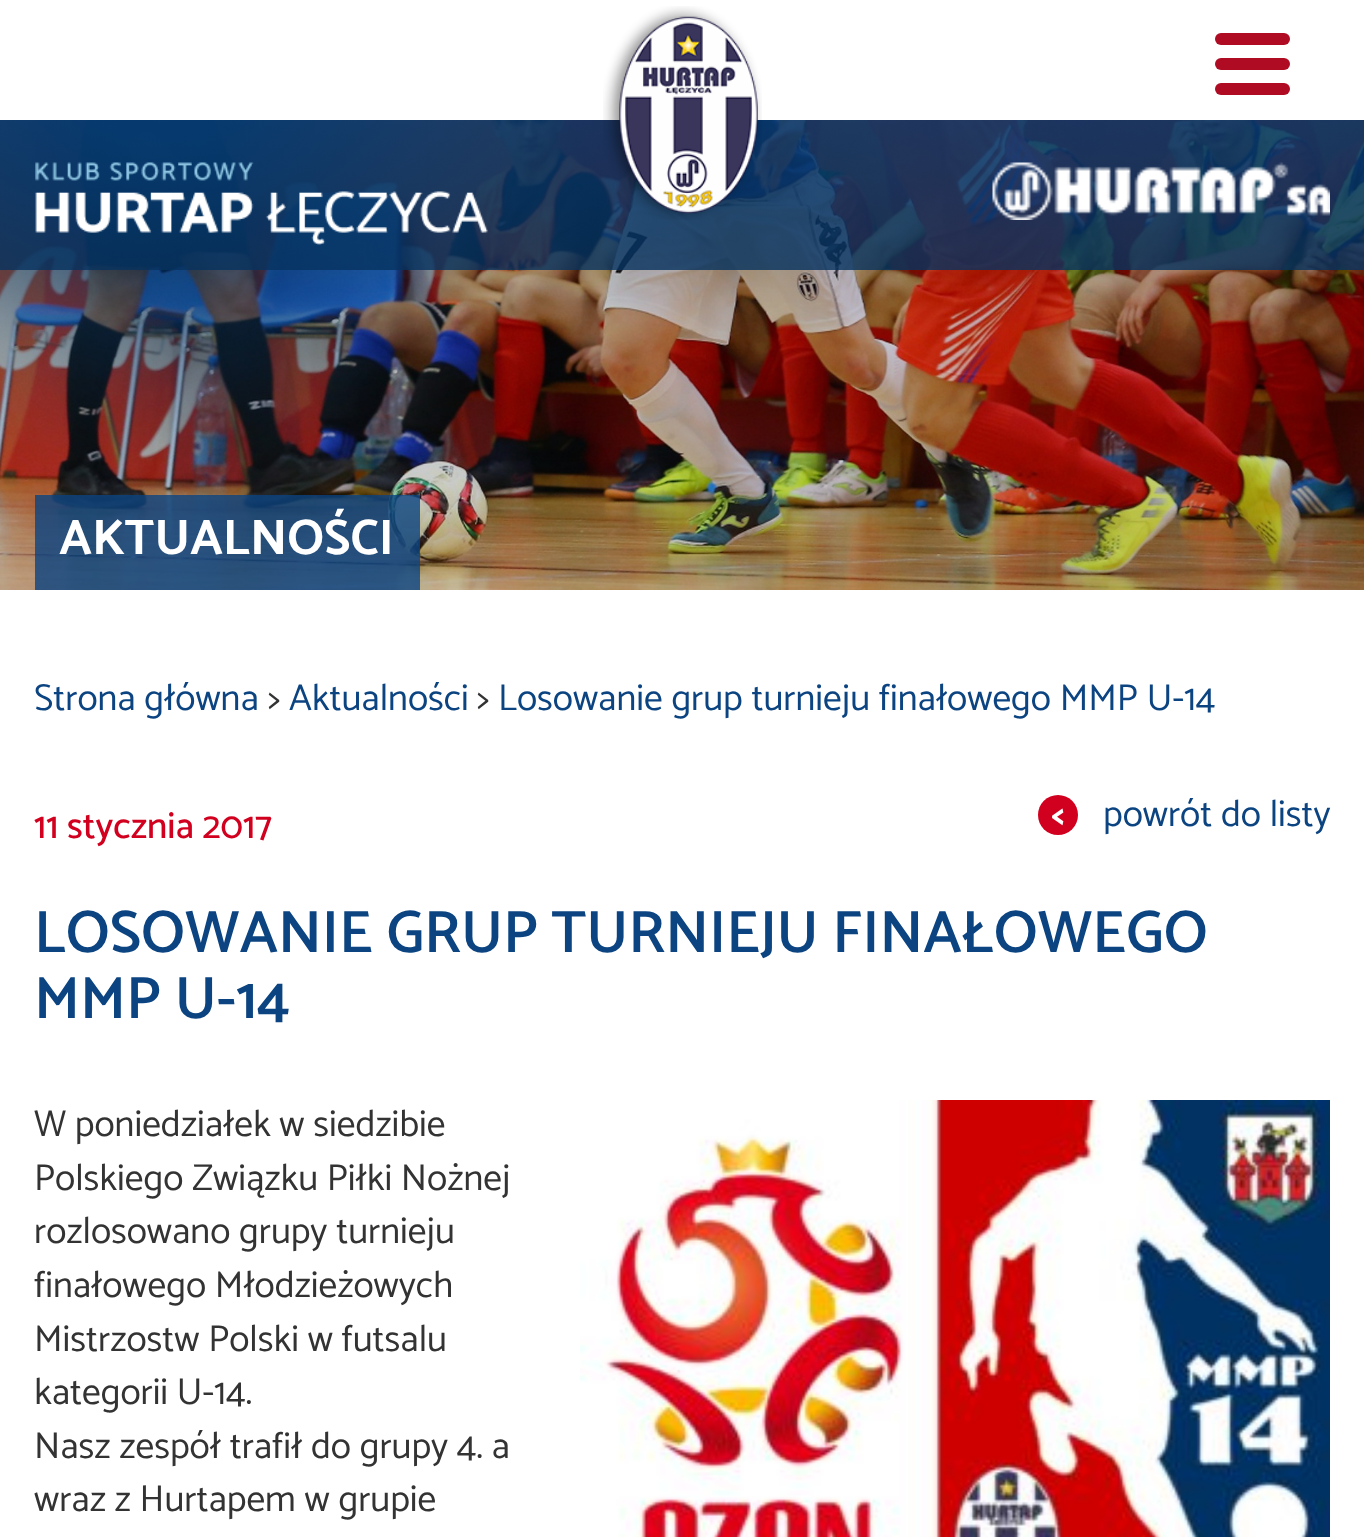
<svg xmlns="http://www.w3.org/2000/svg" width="1364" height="1537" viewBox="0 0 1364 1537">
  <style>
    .t1 { font: bold 50px Catamaran; fill: #fff; }
    .t2 { font: 37.5px Catamaran; fill: #0b4481; }
    .t3 { font: 37.5px Catamaran; fill: #333; }
    .t4 { font: 500 37.5px Catamaran; fill: #d2001f; }
    .t5 { font: bold 37.5px Catamaran; fill: #fff; }
    .t6 { font: 600 60px Catamaran; fill: #0b4481; }
  </style>
  <defs>
    <linearGradient id="g1" gradientUnits="userSpaceOnUse" x1="683" y1="112" x2="683" y2="270"><stop offset="0" stop-color="#063d75" stop-opacity="0.8"/><stop offset="1" stop-color="#06325f" stop-opacity="0.8"/></linearGradient>
  </defs>
  <rect width="100%" height="100%" fill="#fff"/>
  <image x="0" y="120" width="1364" height="470" href="images/1.png"/>
  <rect x="0" y="120" width="1364" height="150" fill="url(#g1)"/>
  <image x="603" y="6" width="159" height="214" href="images/2.png"/>
  <rect x="1215" y="33" width="75" height="12" rx="6" fill="#af0c24"/>
  <rect x="1215" y="58" width="75" height="12" rx="6" fill="#af0c24"/>
  <rect x="1215" y="83" width="75" height="12" rx="6" fill="#af0c24"/>
  <rect x="35" y="495" width="385" height="95" fill="#0b4481cc"/>
  <text x="59" y="554" class="t1">AKTUALNOŚCI</text>
  <image x="35" y="162" width="453" height="83" href="images/3.png"/>
  <image x="992" y="162" width="338" height="58" href="images/4.png"/>
  <text x="34" y="710" class="t2">Strona główna</text>
  <text x="268" y="710" class="t3">&gt;</text>
  <text x="289" y="710" class="t2">Aktualności</text>
  <text x="477" y="710" class="t3">&gt;</text>
  <text x="498" y="710" class="t2">Losowanie grup turnieju finałowego MMP U-14</text>
  <text x="34" y="838" class="t4">11 stycznia 2017</text>
  <circle cx="1058" cy="815" r="20" fill="#d2001f"/>
  <text x="1051" y="826" class="t5">&lt;</text>
  <text x="1103" y="826" class="t2">powrót do listy</text>
  <text x="34" y="952" class="t6">LOSOWANIE GRUP TURNIEJU FINAŁOWEGO</text>
  <text x="34" y="1018" class="t6">MMP U-14</text>
  <text x="34" y="1136" class="t3">W poniedziałek w siedzibie</text>
  <image x="580" y="1100" width="750" height="437" href="images/5.png"/>
  <text x="34" y="1190" class="t3">Polskiego Związku Piłki Nożnej</text>
  <text x="34" y="1243" class="t3">rozlosowano grupy turnieju</text>
  <text x="34" y="1297" class="t3">finałowego Młodzieżowych</text>
  <text x="34" y="1351" class="t3">Mistrzostw Polski w futsalu</text>
  <text x="34" y="1404" class="t3">kategorii U-14.</text>
  <text x="34" y="1458" class="t3">Nasz zespół trafił do grupy 4. a</text>
  <text x="34" y="1511" class="t3">wraz z Hurtapem w grupie</text>
</svg>
